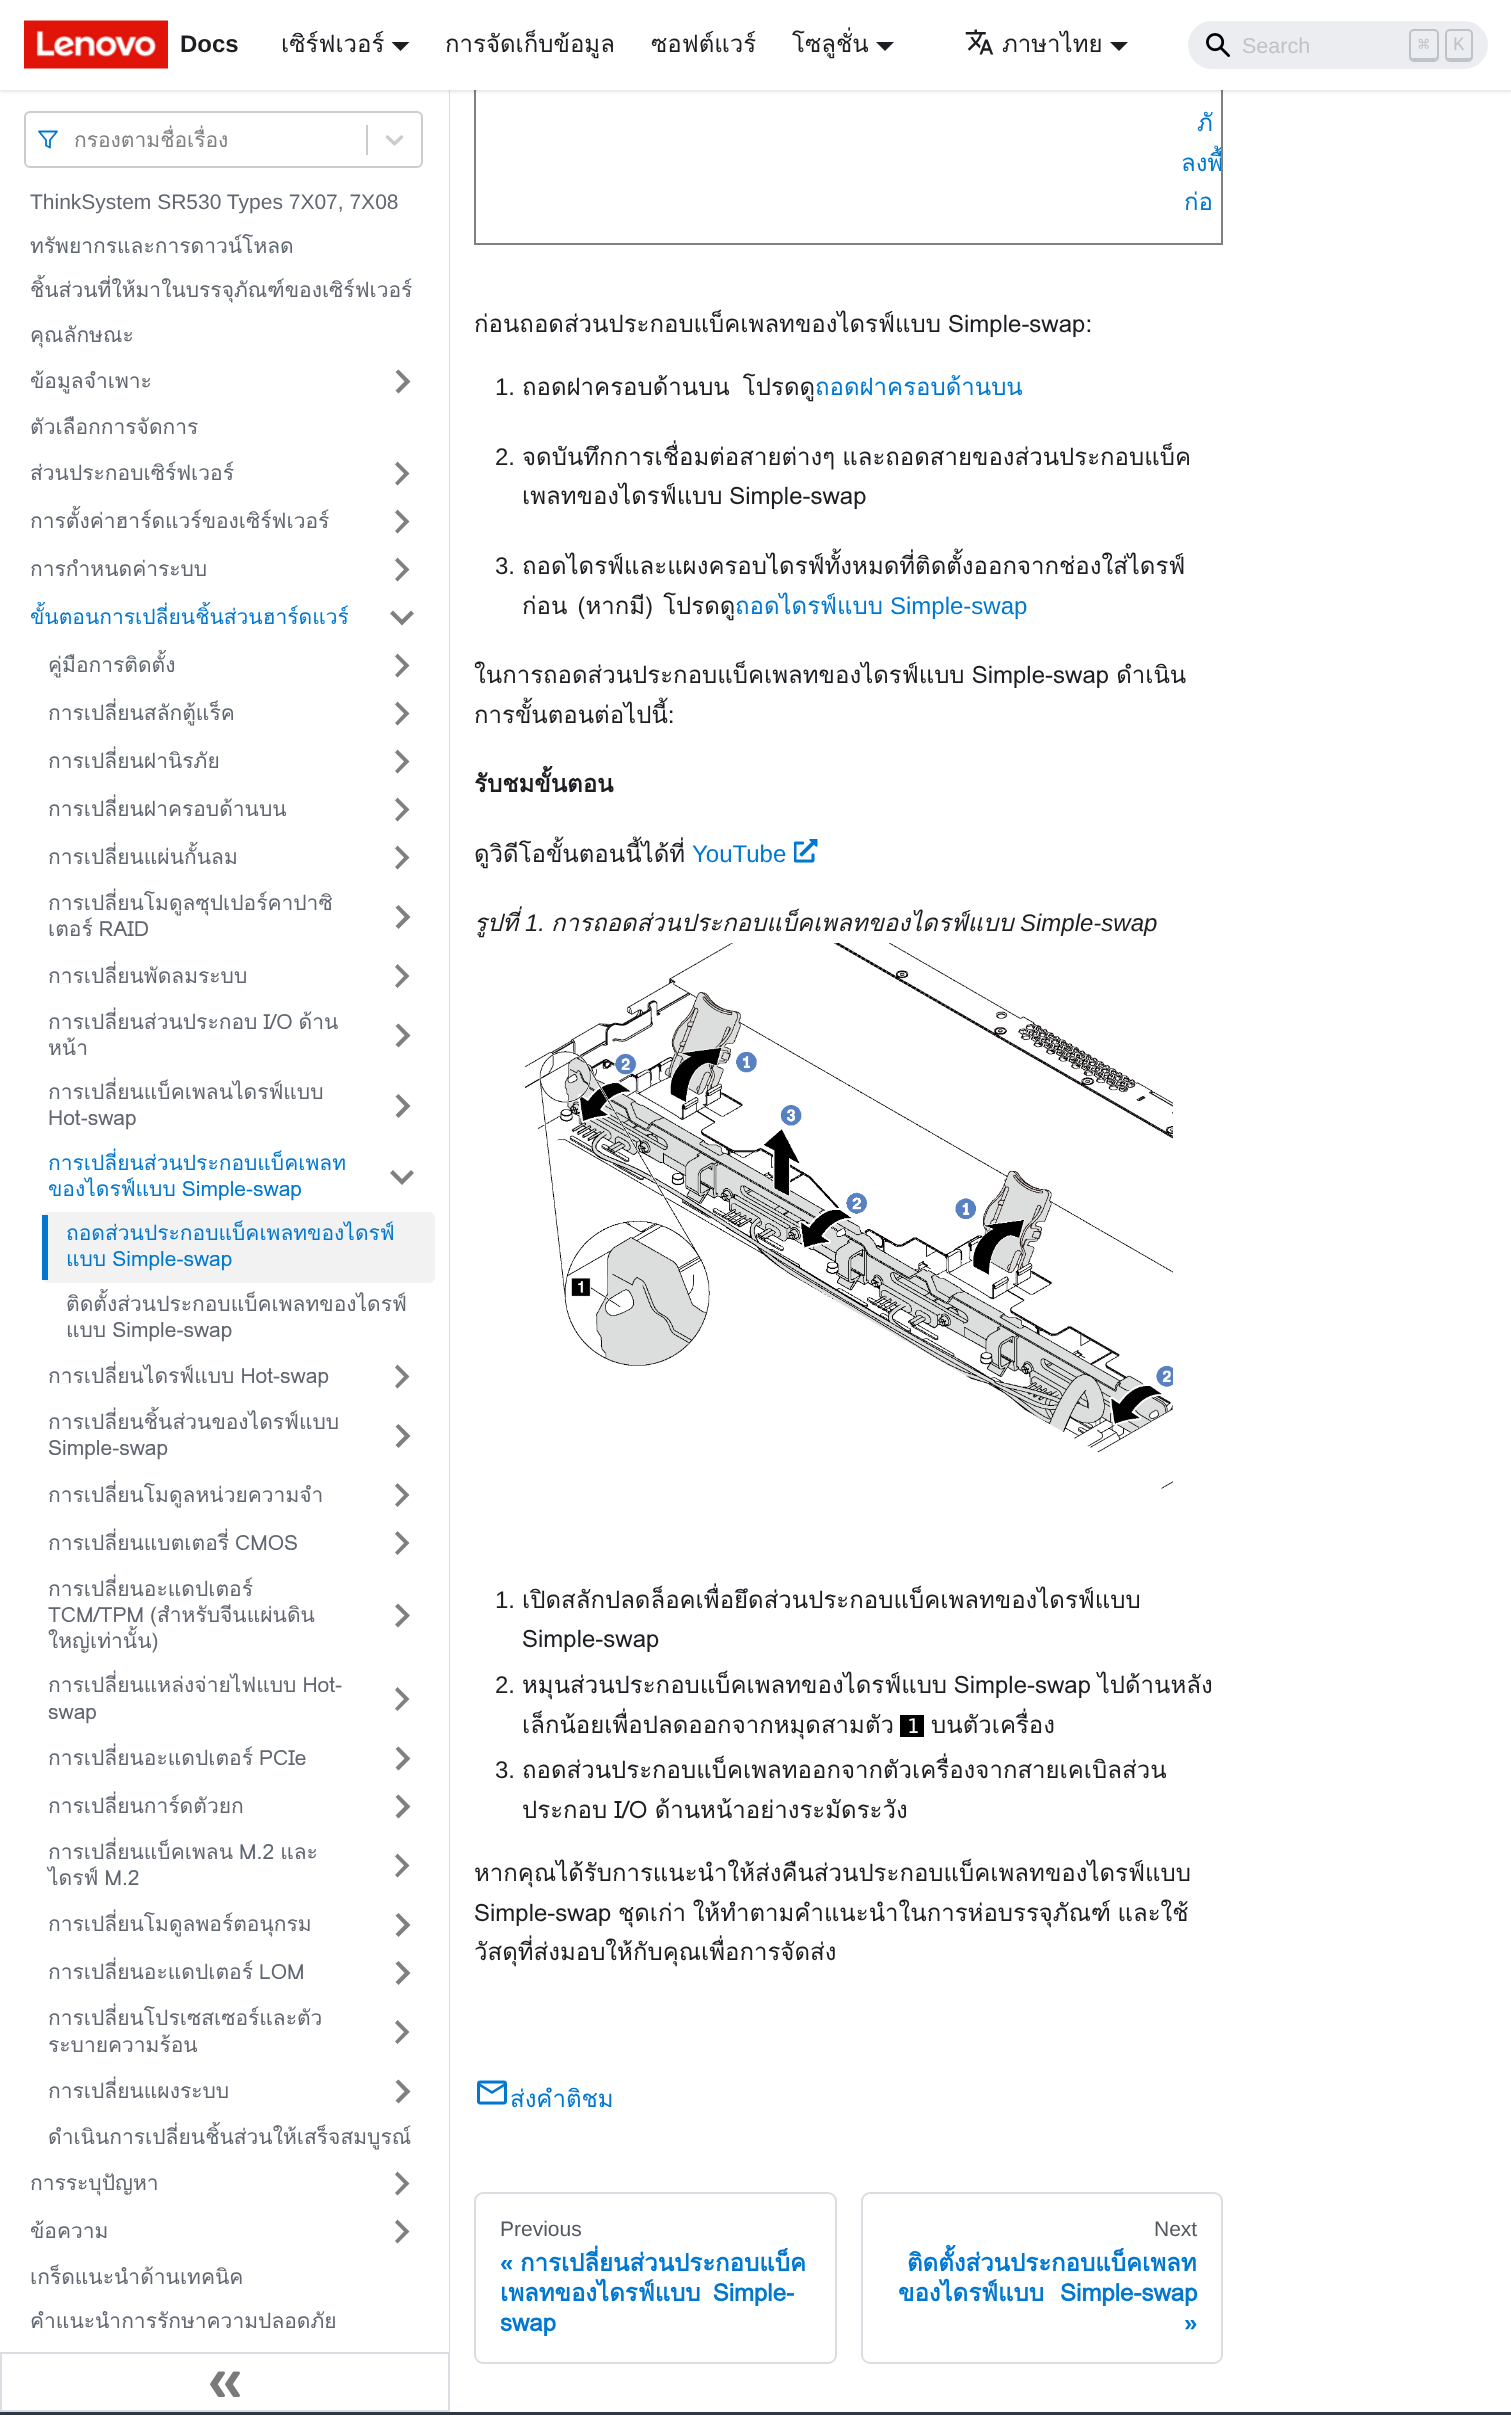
<svg xmlns="http://www.w3.org/2000/svg" width="1511" height="2415" viewBox="0 0 1511 2415">
  <style>
    .t1 { font: bold 24px Liberation Sans; fill: #1c1e21; }
    .t2 { font: 24px Loma; fill: #1c1e21; }
    .t3 { font: 21.5px Liberation Sans; fill: #bec3c9; }
    .t4 { font: 19px DejaVu Sans Mono; fill: #bec3c9; }
    .t5 { font: 19px Liberation Mono; fill: #bec3c9; }
    .t6 { font: 21px Loma; fill: #808080; }
    .t7 { font: 21px Liberation Sans; fill: #606770; }
    .t8 { font: 21px Loma; fill: #606770; }
    .t9 { font: 21px Loma; fill: #0078d0; }
    .t10 { font: 24px Loma; fill: #0078d0; }
    .t11 { font: 24px Liberation Sans; fill: #1c1e21; }
    .t12 { font: 24px Liberation Sans; fill: #0078d0; }
    .t13 { font: bold 24px Loma; fill: #1c1e21; }
    .t14 { font: italic 24px Loma; fill: #1c1e21; }
    .t15 { font: italic 24px Liberation Sans; fill: #1c1e21; }
    .t16 { font: 20px DejaVu Sans Mono; fill: #fff; }
    .t17 { font: 21px Liberation Sans; fill: #525860; }
    .t18 { font: bold 24px Liberation Sans; fill: #0078d0; }
    .t19 { font: bold 24px Loma; fill: #0078d0; }
  </style>
  <defs>
    <clipPath id="clip1"><rect x="476" y="0" width="745" height="243"/></clipPath>
  </defs>
  <rect width="100%" height="100%" fill="#fff"/>
  <rect x="449" y="90" width="1" height="2262" fill="#dadde1"/>
  <rect x="475" y="-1" width="747" height="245" fill="none" stroke="#808080" stroke-width="2"/>
  <rect x="0" y="2" width="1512" height="90" fill="#0000001a" filter="blur(1.5px)"/>
  <rect x="0" y="0" width="1511" height="90" fill="#fff"/>
  <image x="24" y="20" width="144" height="49" href="images/1.png"/>
  <text x="180" y="52" class="t1">Docs</text>
  <text x="281" y="52" class="t2">เซิร์ฟเวอร์</text>
  <path d="M391.5 42H409.5L400.5 51Z" fill="#1c1e21"/>
  <text x="445" y="52" class="t2">การจัดเก็บข้อมูล</text>
  <text x="651" y="52" class="t2">ซอฟต์แวร์</text>
  <text x="792" y="52" class="t2">โซลูชั่น</text>
  <path d="M876 42H894L885 51Z" fill="#1c1e21"/>
  <image x="965" y="29" width="29" height="26" href="images/2.png"/>
  <text x="1002" y="52" class="t2">ภาษาไทย</text>
  <path d="M1110 42H1128L1119 51Z" fill="#1c1e21"/>
  <rect x="1188" y="21" width="300" height="48" rx="24" fill="#ebedf0"/>
  <image x="1206" y="33" width="24" height="24" href="images/3.png"/>
  <text x="1242" y="53" class="t3">Search</text>
  <path d="M1410 55C1410 60 1411.5 60 1416.5 60H1430.5C1435.5 60 1437 60 1437 55C1437 57 1436 58 1434 58H1413C1411 58 1410 57 1410 55Z" fill="#bec3c9"/>
  <rect x="1410" y="30" width="28" height="31" rx="4" fill="none" stroke="#bec3c9" stroke-width="2"/>
  <text x="1418" y="51" class="t4">⌘</text>
  <path d="M1446 55C1446 60 1447.5 60 1452.5 60H1465.5C1470.5 60 1472 60 1472 55C1472 57 1470 58 1468 58H1449C1447 58 1446 57 1446 55Z" fill="#bec3c9"/>
  <rect x="1446" y="30" width="26" height="31" rx="4" fill="none" stroke="#bec3c9" stroke-width="2"/>
  <text x="1453" y="50" class="t5">K</text>
  <rect x="25" y="112" width="397" height="55" rx="5" fill="none" stroke="#ccc" stroke-width="2"/>
  <path d="M57 131.5H39L46 140V145.5L50 147.5V140Z" fill="none" stroke="#0078d0" stroke-width="1.8" stroke-linecap="round" stroke-linejoin="round"/>
  <text x="74" y="147" class="t6">กรองตามชื่อเรื่อง</text>
  <rect x="366" y="125" width="2" height="30" fill="#ccc"/>
  <image x="385" y="135" width="19" height="11" href="images/4.png"/>
  <text x="30" y="209" class="t7">ThinkSystem SR530 Types 7X07, 7X08</text>
  <text x="30" y="253" class="t8">ทรัพยากรและการดาวน์โหลด</text>
  <text x="30" y="297" class="t8">ชิ้นส่วนที่ให้มาในบรรจุภัณฑ์ของเซิร์ฟเวอร์</text>
  <text x="30" y="342" class="t8">คุณลักษณะ</text>
  <text x="30" y="388" class="t8">ข้อมูลจำเพาะ</text>
  <path d="M395.5 372L404.5 381.5L395.5 390.5L398.5 393.5L410.5 381.5L398.5 369.5Z" fill="#808080"/>
  <text x="30" y="434" class="t8">ตัวเลือกการจัดการ</text>
  <text x="30" y="480" class="t8">ส่วนประกอบเซิร์ฟเวอร์</text>
  <path d="M395 464.5L404 473.5L395 483L397.5 485.5L409.5 473.5L397.5 461.5Z" fill="#808080"/>
  <text x="30" y="528" class="t8">การตั้งค่าฮาร์ดแวร์ของเซิร์ฟเวอร์</text>
  <path d="M395 512.5L404 521.5L395 531L397.5 533.5L409.5 521.5L397.5 509.5Z" fill="#808080"/>
  <text x="30" y="576" class="t8">การกำหนดค่าระบบ</text>
  <path d="M395 560.5L404 569.5L395 579L397.5 581.5L409.5 569.5L397.5 557.5Z" fill="#808080"/>
  <text x="30" y="624" class="t9">ขั้นตอนการเปลี่ยนชิ้นส่วนฮาร์ดแวร์</text>
  <path d="M411 610.5L402 619.5L393 610.5L390 613.5L402 625.5L414 613.5Z" fill="#808080"/>
  <text x="48" y="672" class="t8">คู่มือการติดตั้ง</text>
  <path d="M395 656.5L404 665.5L395 675L397.5 677.5L409.5 665.5L397.5 653.5Z" fill="#808080"/>
  <text x="48" y="720" class="t8">การเปลี่ยนสลักตู้แร็ค</text>
  <path d="M395 704.5L404 713.5L395 723L397.5 725.5L409.5 713.5L397.5 701.5Z" fill="#808080"/>
  <text x="48" y="768" class="t8">การเปลี่ยนฝานิรภัย</text>
  <path d="M395 752.5L404 761.5L395 771L397.5 773.5L409.5 761.5L397.5 749.5Z" fill="#808080"/>
  <text x="48" y="816" class="t8">การเปลี่ยนฝาครอบด้านบน</text>
  <path d="M395 800.5L404 809.5L395 819L397.5 821.5L409.5 809.5L397.5 797.5Z" fill="#808080"/>
  <text x="48" y="864" class="t8">การเปลี่ยนแผ่นกั้นลม</text>
  <path d="M395 848.5L404 857.5L395 867L397.5 869.5L409.5 857.5L397.5 845.5Z" fill="#808080"/>
  <text x="48" y="910" class="t8">การเปลี่ยนโมดูลซุปเปอร์คาปาซิ</text>
  <text x="48" y="936" word-spacing="-1" class="t8">เตอร์ RAID</text>
  <path d="M395.5 907.5L404.5 917L395.5 926L398.5 929L410.5 917L398.5 905Z" fill="#808080"/>
  <text x="48" y="983" class="t8">การเปลี่ยนพัดลมระบบ</text>
  <path d="M395 967L404 976L395 985.5L397.5 988L409.5 976L397.5 964Z" fill="#808080"/>
  <text x="48" y="1029" word-spacing="-1" class="t8">การเปลี่ยนส่วนประกอบ I/O ด้าน</text>
  <text x="48" y="1055" class="t8">หน้า</text>
  <path d="M395.5 1026L404.5 1035.5L395.5 1044.5L398.5 1047.5L410.5 1035.5L398.5 1023.5Z" fill="#808080"/>
  <text x="48" y="1099" class="t8">การเปลี่ยนแบ็คเพลนไดรฟ์แบบ</text>
  <text x="48" y="1125" class="t8">Hot-swap</text>
  <path d="M395.5 1096.5L404.5 1106L395.5 1115L398.5 1118L410.5 1106L398.5 1094Z" fill="#808080"/>
  <text x="48" y="1170" class="t9">การเปลี่ยนส่วนประกอบแบ็คเพลท</text>
  <text x="48" y="1196" word-spacing="-1" class="t9">ของไดรฟ์แบบ Simple-swap</text>
  <path d="M411 1170L402 1179L393 1170L390 1173L402 1185L414 1173Z" fill="#808080"/>
  <rect x="42" y="1212" width="393" height="71" rx="6" fill="#f2f2f2"/>
  <rect x="42" y="1215" width="6" height="65" fill="#0078d0"/>
  <text x="66" y="1240" class="t9">ถอดส่วนประกอบแบ็คเพลทของไดรฟ์</text>
  <text x="66" y="1266" word-spacing="-1" class="t9">แบบ Simple-swap</text>
  <text x="66" y="1311" class="t8">ติดตั้งส่วนประกอบแบ็คเพลทของไดรฟ์</text>
  <text x="66" y="1337" word-spacing="-1" class="t8">แบบ Simple-swap</text>
  <text x="48" y="1383" word-spacing="-1" class="t8">การเปลี่ยนไดรฟ์แบบ Hot-swap</text>
  <path d="M395 1367.5L404 1376.5L395 1386L397.5 1388.5L409.5 1376.5L397.5 1364.5Z" fill="#808080"/>
  <text x="48" y="1429" class="t8">การเปลี่ยนชิ้นส่วนของไดรฟ์แบบ</text>
  <text x="48" y="1455" class="t8">Simple-swap</text>
  <path d="M395.5 1426.5L404.5 1436L395.5 1445L398.5 1448L410.5 1436L398.5 1424Z" fill="#808080"/>
  <text x="48" y="1502" class="t8">การเปลี่ยนโมดูลหน่วยความจำ</text>
  <path d="M395 1486L404 1495L395 1504.5L397.5 1507L409.5 1495L397.5 1483Z" fill="#808080"/>
  <text x="48" y="1550" word-spacing="-1" class="t8">การเปลี่ยนแบตเตอรี่ CMOS</text>
  <path d="M395 1534L404 1543L395 1552.5L397.5 1555L409.5 1543L397.5 1531Z" fill="#808080"/>
  <text x="48" y="1596" class="t8">การเปลี่ยนอะแดปเตอร์</text>
  <text x="48" y="1622" word-spacing="-1" class="t8">TCM/TPM (สำหรับจีนแผ่นดิน</text>
  <text x="48" y="1648" class="t8">ใหญ่เท่านั้น)</text>
  <path d="M395 1606.5L404.5 1615.5L395 1624.5L398 1627.5L410 1615.5L398 1603.5Z" fill="#808080"/>
  <text x="48" y="1692" word-spacing="-1" class="t8">การเปลี่ยนแหล่งจ่ายไฟแบบ Hot-</text>
  <text x="48" y="1719" class="t8">swap</text>
  <path d="M395 1690L404 1699L395 1708.5L397.5 1711L409.5 1699L397.5 1687Z" fill="#808080"/>
  <text x="48" y="1765" word-spacing="-1" class="t8">การเปลี่ยนอะแดปเตอร์ PCIe</text>
  <path d="M395.5 1749L404.5 1758.5L395.5 1767.5L398.5 1770.5L410.5 1758.5L398.5 1746.5Z" fill="#808080"/>
  <text x="48" y="1813" class="t8">การเปลี่ยนการ์ดตัวยก</text>
  <path d="M395.5 1797L404.5 1806.5L395.5 1815.5L398.5 1818.5L410.5 1806.5L398.5 1794.5Z" fill="#808080"/>
  <text x="48" y="1859" word-spacing="-1" class="t8">การเปลี่ยนแบ็คเพลน M.2 และ</text>
  <text x="48" y="1885" word-spacing="-1" class="t8">ไดรฟ์ M.2</text>
  <path d="M395 1856.5L404 1865.5L395 1875L397.5 1877.5L409.5 1865.5L397.5 1853.5Z" fill="#808080"/>
  <text x="48" y="1931" class="t8">การเปลี่ยนโมดูลพอร์ตอนุกรม</text>
  <path d="M395.5 1915.5L404.5 1925L395.5 1934L398.5 1937L410.5 1925L398.5 1913Z" fill="#808080"/>
  <text x="48" y="1979" word-spacing="-1" class="t8">การเปลี่ยนอะแดปเตอร์ LOM</text>
  <path d="M395.5 1963.5L404.5 1973L395.5 1982L398.5 1985L410.5 1973L398.5 1961Z" fill="#808080"/>
  <text x="48" y="2025" class="t8">การเปลี่ยนโปรเซสเซอร์และตัว</text>
  <text x="48" y="2052" class="t8">ระบายความร้อน</text>
  <path d="M395 2023L404 2032L395 2041.5L397.5 2044L409.5 2032L397.5 2020Z" fill="#808080"/>
  <text x="48" y="2098" class="t8">การเปลี่ยนแผงระบบ</text>
  <path d="M395.5 2082L404.5 2091.5L395.5 2100.5L398.5 2103.5L410.5 2091.5L398.5 2079.5Z" fill="#808080"/>
  <text x="48" y="2144" class="t8">ดำเนินการเปลี่ยนชิ้นส่วนให้เสร็จสมบูรณ์</text>
  <text x="30" y="2190" class="t8">การระบุปัญหา</text>
  <path d="M395 2174.5L404 2183.5L395 2193L397.5 2195.5L409.5 2183.5L397.5 2171.5Z" fill="#808080"/>
  <text x="30" y="2238" class="t8">ข้อความ</text>
  <path d="M395 2222.5L404 2231.5L395 2241L397.5 2243.5L409.5 2231.5L397.5 2219.5Z" fill="#808080"/>
  <text x="30" y="2284" class="t8">เกร็ดแนะนำด้านเทคนิค</text>
  <text x="30" y="2328" class="t8">คำแนะนำการรักษาความปลอดภัย</text>
  <rect x="1" y="2353" width="448" height="58" fill="none" stroke="#dadde1" stroke-width="2"/>
  <image x="210" y="2371" width="30" height="26" href="images/5.png"/>
  <text x="1197" y="131" class="t10">ภั</text>
  <g clip-path="url(#clip1)">
    <text x="1181" y="171" class="t10">ลงพื้</text>
  </g>
  <text x="1184" y="210" class="t10">ก่อ</text>
  <text x="474" y="332" word-spacing="-1" class="t2">ก่อนถอดส่วนประกอบแบ็คเพลทของไดรฟ์แบบ Simple-swap:</text>
  <text x="495" y="395" class="t11">1.</text>
  <text x="522" y="395" word-spacing="5" class="t2">ถอดฝาครอบด้านบน โปรดดู</text>
  <text x="815" y="395" class="t10">ถอดฝาครอบด้านบน</text>
  <text x="495" y="465" class="t11">2.</text>
  <text x="522" y="465" word-spacing="-1" class="t2">จดบันทึกการเชื่อมต่อสายต่างๆ และถอดสายของส่วนประกอบแบ็ค</text>
  <text x="522" y="504" word-spacing="-1.5" class="t2">เพลทของไดรฟ์แบบ Simple-swap</text>
  <text x="495" y="574" class="t11">3.</text>
  <text x="522" y="574" class="t2">ถอดไดรฟ์และแผงครอบไดรฟ์ทั้งหมดที่ติดตั้งออกจากช่องใส่ไดรฟ์</text>
  <text x="522" y="614" word-spacing="2" class="t2">ก่อน (หากมี) โปรดดู</text>
  <text x="735" y="614" class="t10">ถอดไดรฟ์แบบ</text>
  <text x="890" y="614" class="t12">Simple-swap</text>
  <text x="474" y="683" word-spacing="-1" class="t2">ในการถอดส่วนประกอบแบ็คเพลทของไดรฟ์แบบ Simple-swap ดำเนิน</text>
  <text x="474" y="723" class="t2">การขั้นตอนต่อไปนี้:</text>
  <text x="474" y="792" class="t13">รับชมขั้นตอน</text>
  <text x="474" y="862" class="t2">ดูวิดีโอขั้นตอนนี้ได้ที่</text>
  <text x="692" y="862" class="t12">YouTube</text>
  <image x="794" y="839" width="24" height="24" href="images/6.png"/>
  <text x="474" y="931" class="t14">รูปที่</text>
  <text x="525" y="931" class="t15">1.</text>
  <text x="551" y="931" class="t14">การถอดส่วนประกอบแบ็คเพลทของไดรฟ์แบบ</text>
  <text x="1020" y="931" class="t15">Simple-swap</text>
  <image x="525" y="943" width="648" height="546" href="images/7.png"/>
  <text x="495" y="1608" class="t11">1.</text>
  <text x="522" y="1608" class="t2">เปิดสลักปลดล็อคเพื่อยึดส่วนประกอบแบ็คเพลทของไดรฟ์แบบ</text>
  <text x="522" y="1647" class="t2">Simple-swap</text>
  <text x="495" y="1693" class="t11">2.</text>
  <text x="522" y="1693" word-spacing="-1.5" class="t2">หมุนส่วนประกอบแบ็คเพลทของไดรฟ์แบบ Simple-swap ไปด้านหลัง</text>
  <text x="522" y="1733" class="t2">เล็กน้อยเพื่อปลดออกจากหมุดสามตัว</text>
  <rect x="900" y="1715" width="24" height="22" fill="#000"/>
  <text x="907" y="1733" class="t16">1</text>
  <text x="931" y="1733" class="t2">บนตัวเครื่อง</text>
  <text x="495" y="1778" class="t11">3.</text>
  <text x="522" y="1778" class="t2">ถอดส่วนประกอบแบ็คเพลทออกจากตัวเครื่องจากสายเคเบิลส่วน</text>
  <text x="522" y="1818" word-spacing="-1" class="t2">ประกอบ I/O ด้านหน้าอย่างระมัดระวัง</text>
  <text x="474" y="1881" class="t2">หากคุณได้รับการแนะนำให้ส่งคืนส่วนประกอบแบ็คเพลทของไดรฟ์แบบ</text>
  <text x="474" y="1921" word-spacing="-1.5" class="t2">Simple-swap ชุดเก่า ให้ทำตามคำแนะนำในการห่อบรรจุภัณฑ์ และใช้</text>
  <text x="474" y="1960" class="t2">วัสดุที่ส่งมอบให้กับคุณเพื่อการจัดส่ง</text>
  <text x="510" y="2107" class="t10">ส่งคำติชม</text>
  <image x="477" y="2080" width="30" height="25" href="images/8.png"/>
  <rect x="475" y="2193" width="361" height="170" rx="8" fill="none" stroke="#dadde1" stroke-width="2"/>
  <text x="500" y="2236" class="t17">Previous</text>
  <text x="500" y="2271" class="t18">«</text>
  <text x="520" y="2271" class="t19">การเปลี่ยนส่วนประกอบแบ็ค</text>
  <text x="500" y="2301" word-spacing="4" class="t19">เพลทของไดรฟ์แบบ Simple-</text>
  <text x="500" y="2331" class="t19">swap</text>
  <rect x="862" y="2193" width="360" height="170" rx="8" fill="none" stroke="#dadde1" stroke-width="2"/>
  <text x="1154" y="2236" class="t17">Next</text>
  <text x="907" y="2271" class="t19">ติดตั้งส่วนประกอบแบ็คเพลท</text>
  <text x="898" y="2301" word-spacing="8" class="t19">ของไดรฟ์แบบ Simple-swap</text>
  <text x="1184" y="2331" class="t18">»</text>
  <rect x="0" y="2412" width="1511" height="3" fill="#303846"/>
</svg>
